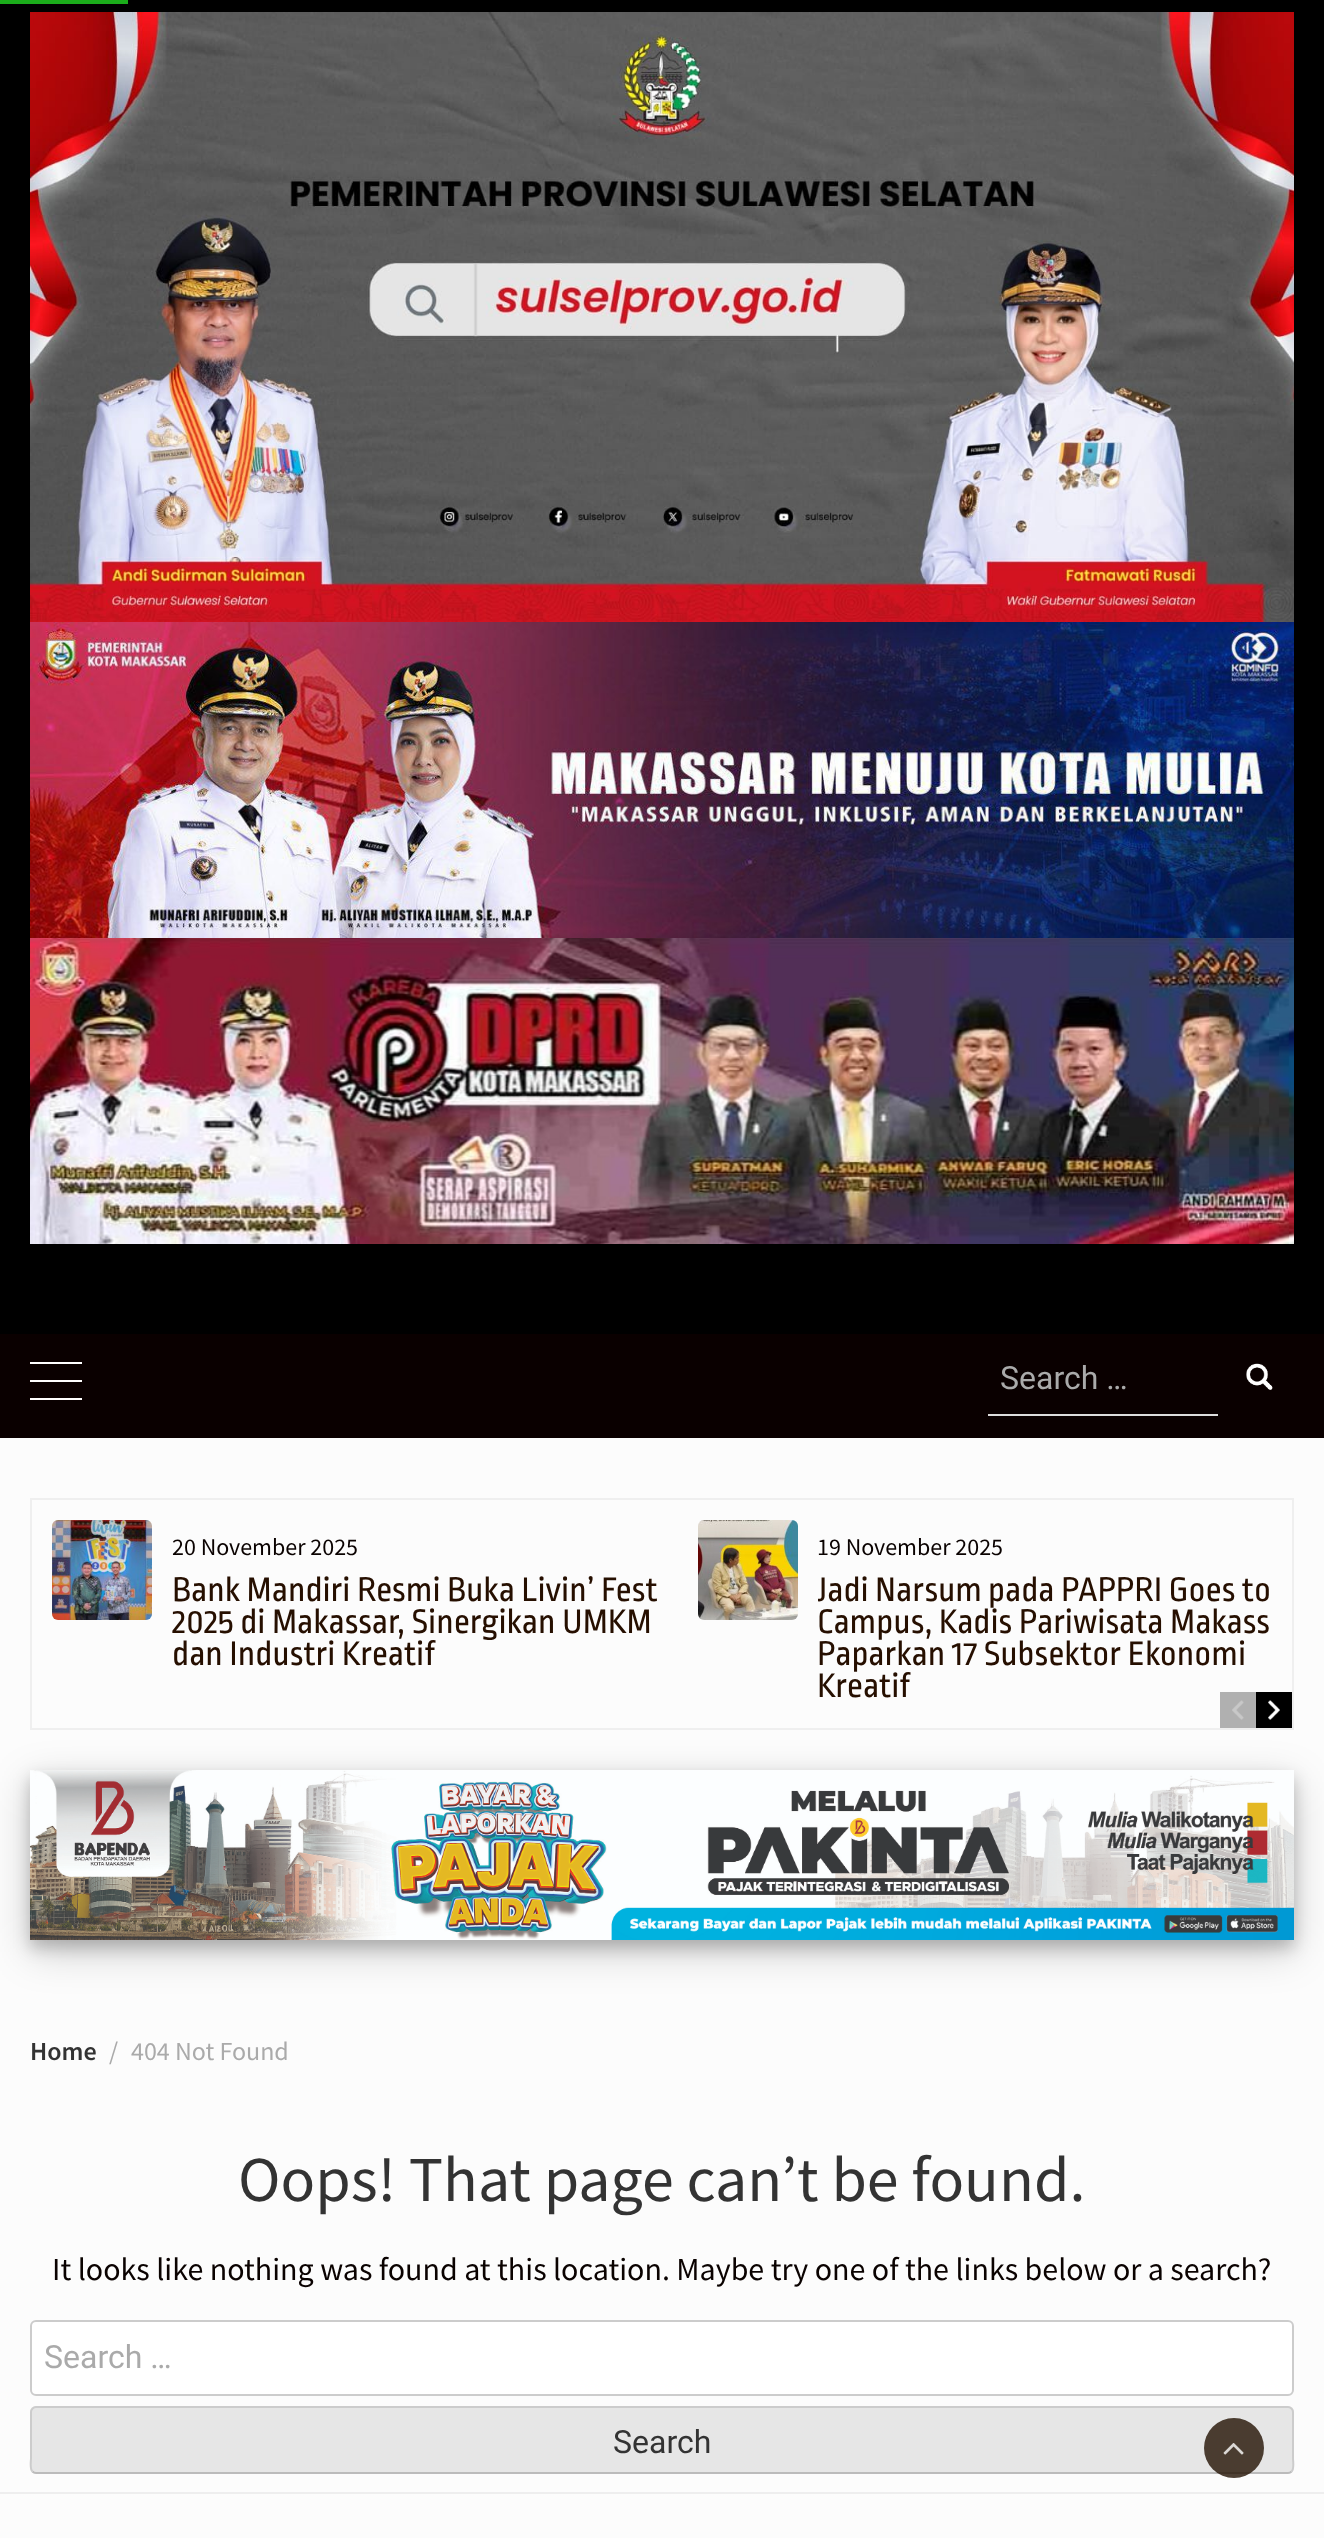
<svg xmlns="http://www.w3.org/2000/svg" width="1324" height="2538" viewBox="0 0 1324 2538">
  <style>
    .t1 { font: 32px Roboto; fill: #aaa; }
    .t2 { font: 24px Source Sans Pro; fill: #0a0200; }
    .t3 { font: 36px Ropa Sans; fill: #260f00; }
    .t4 { font: 600 26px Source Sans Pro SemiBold; fill: #333; }
    .t5 { font: 26px Source Sans Pro; fill: #aaa; }
    .t6 { font: 64px Source Sans Pro; fill: #333; }
    .t7 { font: 32px Source Sans Pro; fill: #0a0200; }
    .t8 { font: 32px Roboto; fill: #333; }
  </style>
  <defs>
    <clipPath id="clip1"><rect x="818" y="1520" width="454" height="188"/></clipPath>
  </defs>
  <rect width="100%" height="100%" fill="#fcfcfc"/>
  <rect x="0" y="0" width="1324" height="1334" fill="#000"/>
  <rect x="0" y="0" width="128" height="4" fill="#1bad1b"/>
  <image x="30" y="12" width="1264" height="610" href="images/1.png"/>
  <image x="30" y="622" width="1264" height="316" href="images/2.png"/>
  <image x="30" y="938" width="1264" height="306" href="images/3.png"/>
  <rect x="0" y="1334" width="1324" height="104" fill="#0a0000"/>
  <rect x="30" y="1362" width="52" height="2" fill="#fff"/>
  <rect x="30" y="1380" width="52" height="2" fill="#fff"/>
  <rect x="30" y="1398" width="52" height="2" fill="#fff"/>
  <rect x="988" y="1414" width="230" height="2" fill="#ddd"/>
  <text x="1000" y="1389" class="t1">Search …</text>
  <image x="1246" y="1363" width="27" height="27" href="images/4.png"/>
  <rect x="31" y="1499" width="1262" height="230" fill="none" stroke="#efefef" stroke-width="2"/>
  <image x="52" y="1520" width="100" height="100" href="images/5.png"/>
  <text x="172" y="1555" class="t2">20 November 2025</text>
  <text x="172" y="1601" class="t3">Bank Mandiri Resmi Buka Livin’ Fest</text>
  <text x="172" y="1633" class="t3">2025 di Makassar, Sinergikan UMKM</text>
  <text x="172" y="1665" class="t3">dan Industri Kreatif</text>
  <image x="698" y="1520" width="100" height="100" href="images/6.png"/>
  <text x="817" y="1555" class="t2">19 November 2025</text>
  <g clip-path="url(#clip1)">
    <text x="817" y="1601" class="t3">Jadi Narsum</text>
  </g>
  <text x="988" y="1601" class="t3">pada PAPPRI Goes to</text>
  <text x="817" y="1633" class="t3">Campus, Kadis Pariwisata Makass</text>
  <text x="817" y="1665" class="t3">Paparkan 17 Subsektor Ekonomi</text>
  <text x="817" y="1697" class="t3">Kreatif</text>
  <rect x="30" y="1782" width="1264" height="170" fill="#00000030" filter="blur(20px)"/>
  <rect x="1220" y="1692" width="36" height="36" fill="#b0b0b0"/>
  <image x="1232" y="1700" width="12" height="20" href="images/7.png"/>
  <rect x="1256" y="1692" width="36" height="36" fill="#000"/>
  <image x="1268" y="1700" width="12" height="20" href="images/8.png"/>
  <rect x="30" y="1778" width="1264" height="170" fill="#00000033" filter="blur(8px)"/>
  <image x="30" y="1770" width="1264" height="170" href="images/9.png"/>
  <text x="30" y="2060" class="t4">Home</text>
  <text x="109" y="2060" class="t5">/</text>
  <text x="131" y="2060" class="t5">404 Not Found</text>
  <rect x="0" y="2492" width="1324" height="2" fill="#eee"/>
  <text x="238" y="2201" class="t6">Oops! That page can’t be found.</text>
  <text x="52" y="2280" class="t7">It looks like nothing was found at this location. Maybe try one of the links below or a search?</text>
  <rect x="31" y="2321" width="1262" height="74" rx="5" fill="#fff" stroke="#ccc" stroke-width="2"/>
  <text x="44" y="2368" class="t1">Search …</text>
  <rect x="30" y="2406" width="1264" height="68" rx="6" fill="#e6e6e6"/>
  <path d="M1291.5 2471.5C1290.5 2472.5 1289.5 2473 1288 2473H36C34.5 2473 33.5 2472.5 32.5 2471.5" fill="none" stroke="#bbb" stroke-width="2"/>
  <path d="M32.5 2471.5C29.5 2468.5 31 2461 31 2458.5V2412C31 2409.5 33.5 2407 36 2407H1288C1290.5 2407 1293 2409.5 1293 2412V2458.5C1293 2461 1294.5 2468.5 1291.5 2471.5" fill="none" stroke="#ccc" stroke-width="2"/>
  <text x="613" y="2453" class="t8">Search</text>
  <circle cx="1234" cy="2448" r="30" fill="#231203cc"/>
  <image x="1223" y="2443" width="21" height="12" href="images/10.png"/>
</svg>
